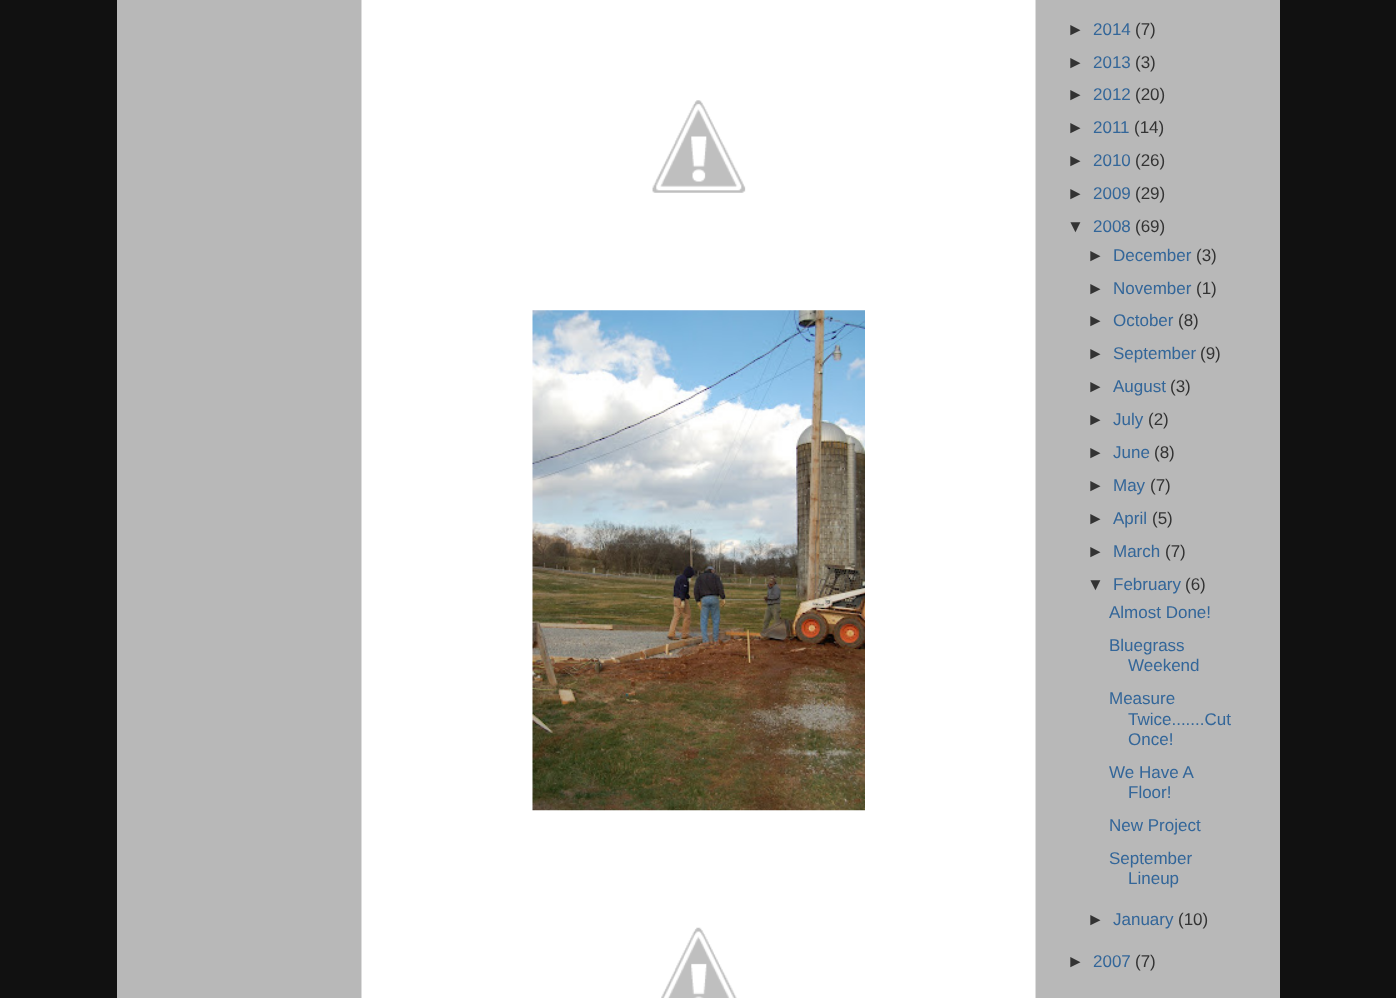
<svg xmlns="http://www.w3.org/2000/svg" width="1396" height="998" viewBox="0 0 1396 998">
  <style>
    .t1 { font: 17px Liberation Sans; fill: #333; }
    .t2 { font: 17px Liberation Sans; fill: #369; }
  </style>
  <rect width="100%" height="100%" fill="#111"/>
  <rect x="117" y="0" width="1163" height="998" fill="#b8b8b8"/>
  <rect x="361.5" y="-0.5" width="674" height="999" fill="#fff" stroke="#ddd"/>
  <image x="652" y="100" width="94" height="93" href="images/1.png"/>
  <image x="532" y="310" width="333" height="501" href="images/2.png"/>
  <image x="661" y="927" width="76" height="71" href="images/3.png"/>
  <text x="1067" y="35" class="t1">►</text>
  <text x="1093" y="35" class="t2">2014</text>
  <text x="1135" y="35" class="t1">(7)</text>
  <text x="1067" y="68" class="t1">►</text>
  <text x="1093" y="68" class="t2">2013</text>
  <text x="1135" y="68" class="t1">(3)</text>
  <text x="1067" y="100" class="t1">►</text>
  <text x="1093" y="100" class="t2">2012</text>
  <text x="1135" y="100" class="t1">(20)</text>
  <text x="1067" y="133" class="t1">►</text>
  <text x="1093" y="133" class="t2">2011</text>
  <text x="1134" y="133" class="t1">(14)</text>
  <text x="1067" y="166" class="t1">►</text>
  <text x="1093" y="166" class="t2">2010</text>
  <text x="1135" y="166" class="t1">(26)</text>
  <text x="1067" y="199" class="t1">►</text>
  <text x="1093" y="199" class="t2">2009</text>
  <text x="1135" y="199" class="t1">(29)</text>
  <text x="1067" y="232" class="t1">▼</text>
  <text x="1093" y="232" class="t2">2008</text>
  <text x="1135" y="232" class="t1">(69)</text>
  <text x="1087" y="261" class="t1">►</text>
  <text x="1113" y="261" class="t2">December</text>
  <text x="1196" y="261" class="t1">(3)</text>
  <text x="1087" y="294" class="t1">►</text>
  <text x="1113" y="294" class="t2">November</text>
  <text x="1196" y="294" class="t1">(1)</text>
  <text x="1087" y="326" class="t1">►</text>
  <text x="1113" y="326" class="t2">October</text>
  <text x="1178" y="326" class="t1">(8)</text>
  <text x="1087" y="359" class="t1">►</text>
  <text x="1113" y="359" class="t2">September</text>
  <text x="1200" y="359" class="t1">(9)</text>
  <text x="1087" y="392" class="t1">►</text>
  <text x="1113" y="392" class="t2">August</text>
  <text x="1170" y="392" class="t1">(3)</text>
  <text x="1087" y="425" class="t1">►</text>
  <text x="1113" y="425" class="t2">July</text>
  <text x="1148" y="425" class="t1">(2)</text>
  <text x="1087" y="458" class="t1">►</text>
  <text x="1113" y="458" class="t2">June</text>
  <text x="1154" y="458" class="t1">(8)</text>
  <text x="1087" y="491" class="t1">►</text>
  <text x="1113" y="491" class="t2">May</text>
  <text x="1150" y="491" class="t1">(7)</text>
  <text x="1087" y="524" class="t1">►</text>
  <text x="1113" y="524" class="t2">April</text>
  <text x="1152" y="524" class="t1">(5)</text>
  <text x="1087" y="557" class="t1">►</text>
  <text x="1113" y="557" class="t2">March</text>
  <text x="1165" y="557" class="t1">(7)</text>
  <text x="1087" y="590" class="t1">▼</text>
  <text x="1113" y="590" class="t2">February</text>
  <text x="1185" y="590" class="t1">(6)</text>
  <text x="1109" y="618" class="t2">Almost Done!</text>
  <text x="1109" y="651" class="t2">Bluegrass</text>
  <text x="1128" y="671" class="t2">Weekend</text>
  <text x="1109" y="704" class="t2">Measure</text>
  <text x="1128" y="725" class="t2">Twice.......Cut</text>
  <text x="1128" y="745" class="t2">Once!</text>
  <text x="1109" y="778" class="t2">We Have A</text>
  <text x="1128" y="798" class="t2">Floor!</text>
  <text x="1109" y="831" class="t2">New Project</text>
  <text x="1109" y="864" class="t2">September</text>
  <text x="1128" y="884" class="t2">Lineup</text>
  <text x="1087" y="925" class="t1">►</text>
  <text x="1113" y="925" class="t2">January</text>
  <text x="1178" y="925" class="t1">(10)</text>
  <text x="1067" y="967" class="t1">►</text>
  <text x="1093" y="967" class="t2">2007</text>
  <text x="1135" y="967" class="t1">(7)</text>
</svg>
